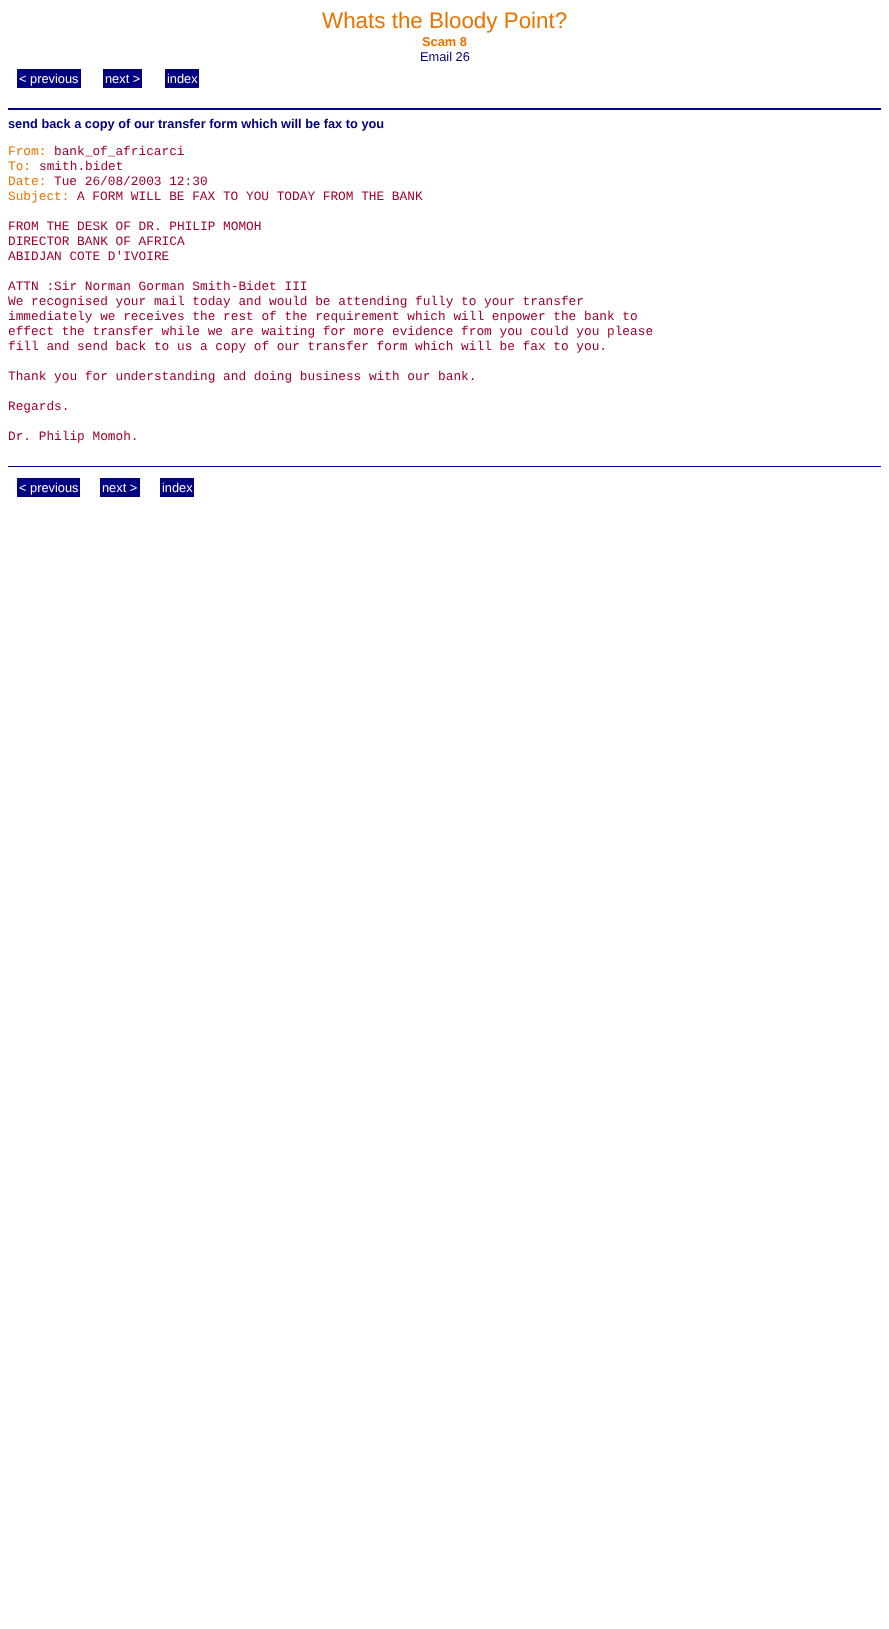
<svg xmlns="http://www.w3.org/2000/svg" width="889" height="1629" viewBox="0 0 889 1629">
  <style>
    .t1 { font: 22.4px Liberation Sans; fill: #e87400; }
    .t2 { font: bold 12.8px Liberation Sans; fill: #e87400; }
    .t3 { font: 12.8px Liberation Sans; fill: #000080; }
    .t4 { font: 12.8px Liberation Sans; fill: #fff; }
    .t5 { font: bold 12.8px Liberation Sans; fill: #000080; }
    .t6 { font: 12.8px Liberation Mono; fill: #e87400; }
    .t7 { font: 12.8px Liberation Mono; fill: #9f0028; }
  </style>
  <rect width="100%" height="100%" fill="#fff"/>
  <text x="322" y="28" class="t1">Whats the Bloody Point?</text>
  <text x="422" y="46" class="t2">Scam 8</text>
  <text x="420" y="61" class="t3">Email 26</text>
  <rect x="17" y="69" width="64" height="19" fill="#000080"/>
  <text x="19" y="83" class="t4">&lt; previous</text>
  <rect x="103" y="69" width="39" height="19" fill="#000080"/>
  <text x="105" y="83" class="t4">next &gt;</text>
  <rect x="165" y="69" width="34" height="19" fill="#000080"/>
  <text x="167" y="83" class="t4">index</text>
  <rect x="8" y="108" width="873" height="2" fill="#000080"/>
  <text x="8" y="128" class="t5">send back a copy of our transfer form which will be fax to you</text>
  <text x="8" y="155" class="t6">From:</text>
  <text x="54" y="155" class="t7">bank_of_africarci</text>
  <text x="8" y="170" class="t6">To:</text>
  <text x="39" y="170" class="t7">smith.bidet</text>
  <text x="8" y="185" class="t6">Date:</text>
  <text x="54" y="185" class="t7">Tue 26/08/2003 12:30</text>
  <text x="8" y="200" class="t6">Subject:</text>
  <text x="77" y="200" class="t7">A FORM WILL BE FAX TO YOU TODAY FROM THE BANK</text>
  <text x="8" y="230" class="t7">FROM THE DESK OF DR. PHILIP MOMOH</text>
  <text x="8" y="245" class="t7">DIRECTOR BANK OF AFRICA</text>
  <text x="8" y="260" class="t7">ABIDJAN COTE D'IVOIRE</text>
  <text x="8" y="290" class="t7">ATTN :Sir Norman Gorman Smith-Bidet III</text>
  <text x="8" y="305" class="t7">We recognised your mail today and would be attending fully to your transfer</text>
  <text x="8" y="320" class="t7">immediately we receives the rest of the requirement which will enpower the bank to</text>
  <text x="8" y="335" class="t7">effect the transfer while we are waiting for more evidence from you could you please</text>
  <text x="8" y="350" class="t7">fill and send back to us a copy of our transfer form which will be fax to you.</text>
  <text x="8" y="380" class="t7">Thank you for understanding and doing business with our bank.</text>
  <text x="8" y="410" class="t7">Regards.</text>
  <text x="8" y="440" class="t7">Dr. Philip Momoh.</text>
  <rect x="8" y="466" width="873" height="1" fill="#000080"/>
  <rect x="17" y="478" width="63" height="19" fill="#000080"/>
  <text x="19" y="492" class="t4">&lt; previous</text>
  <rect x="100" y="478" width="40" height="19" fill="#000080"/>
  <text x="102" y="492" class="t4">next &gt;</text>
  <rect x="160" y="478" width="34" height="19" fill="#000080"/>
  <text x="162" y="492" class="t4">index</text>
</svg>
